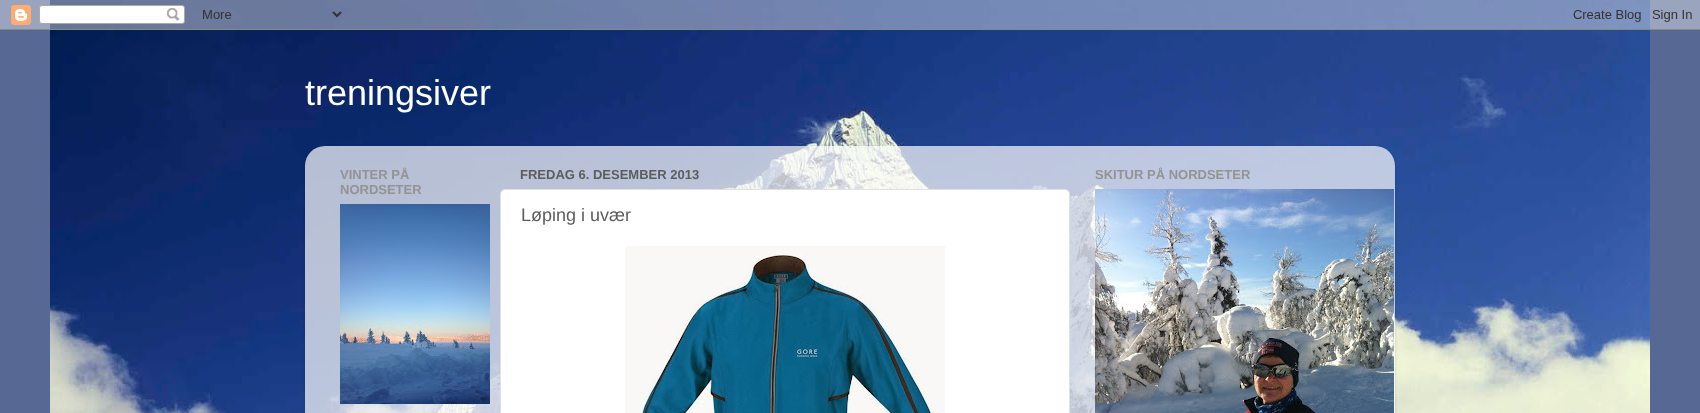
<svg xmlns="http://www.w3.org/2000/svg" width="1700" height="413" viewBox="0 0 1700 413">
  <style>
    .t1 { font: 36px Liberation Sans; fill: #fff; }
    .t2 { font: bold 13px Liberation Sans; fill: #939393; }
    .t3 { font: bold 13px Liberation Sans; fill: #5d5d5d; }
    .t4 { font: 18px Liberation Sans; fill: #5d5d5d; }
  </style>
  <defs>
    <clipPath id="clip1"><path d="M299 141H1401V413H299ZM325 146H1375C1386 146 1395 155 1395 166V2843H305V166C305 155 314 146 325 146Z" clip-rule="evenodd"/></clipPath>
  </defs>
  <rect width="100%" height="100%" fill="#576894"/>
  <image x="50" y="0" width="1600" height="413" href="images/1.png"/>
  <image x="0" y="0" width="1700" height="30" href="images/2.png"/>
  <text x="305" y="105" class="t1">treningsiver</text>
  <g clip-path="url(#clip1)">
    <rect x="305" y="147" width="1090" height="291" rx="20" fill="#00000026" filter="blur(1.5px)"/>
  </g>
  <image x="305" y="146" width="1090" height="267" href="images/3.png"/>
  <text x="340" y="179" class="t2">VINTER PÅ</text>
  <text x="340" y="194" class="t2">NORDSETER</text>
  <image x="340" y="204" width="150" height="200" href="images/4.png"/>
  <text x="520" y="179" class="t3">FREDAG 6. DESEMBER 2013</text>
  <rect x="500.5" y="189.5" width="569" height="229" rx="4.5" fill="#fff" stroke="#e1e1e1"/>
  <text x="521" y="221" class="t4">Løping i uvær</text>
  <image x="625" y="246" width="320" height="167" href="images/5.png"/>
  <text x="1095" y="179" class="t2">SKITUR PÅ NORDSETER</text>
  <image x="1095" y="189" width="299" height="224" href="images/6.png"/>
</svg>
